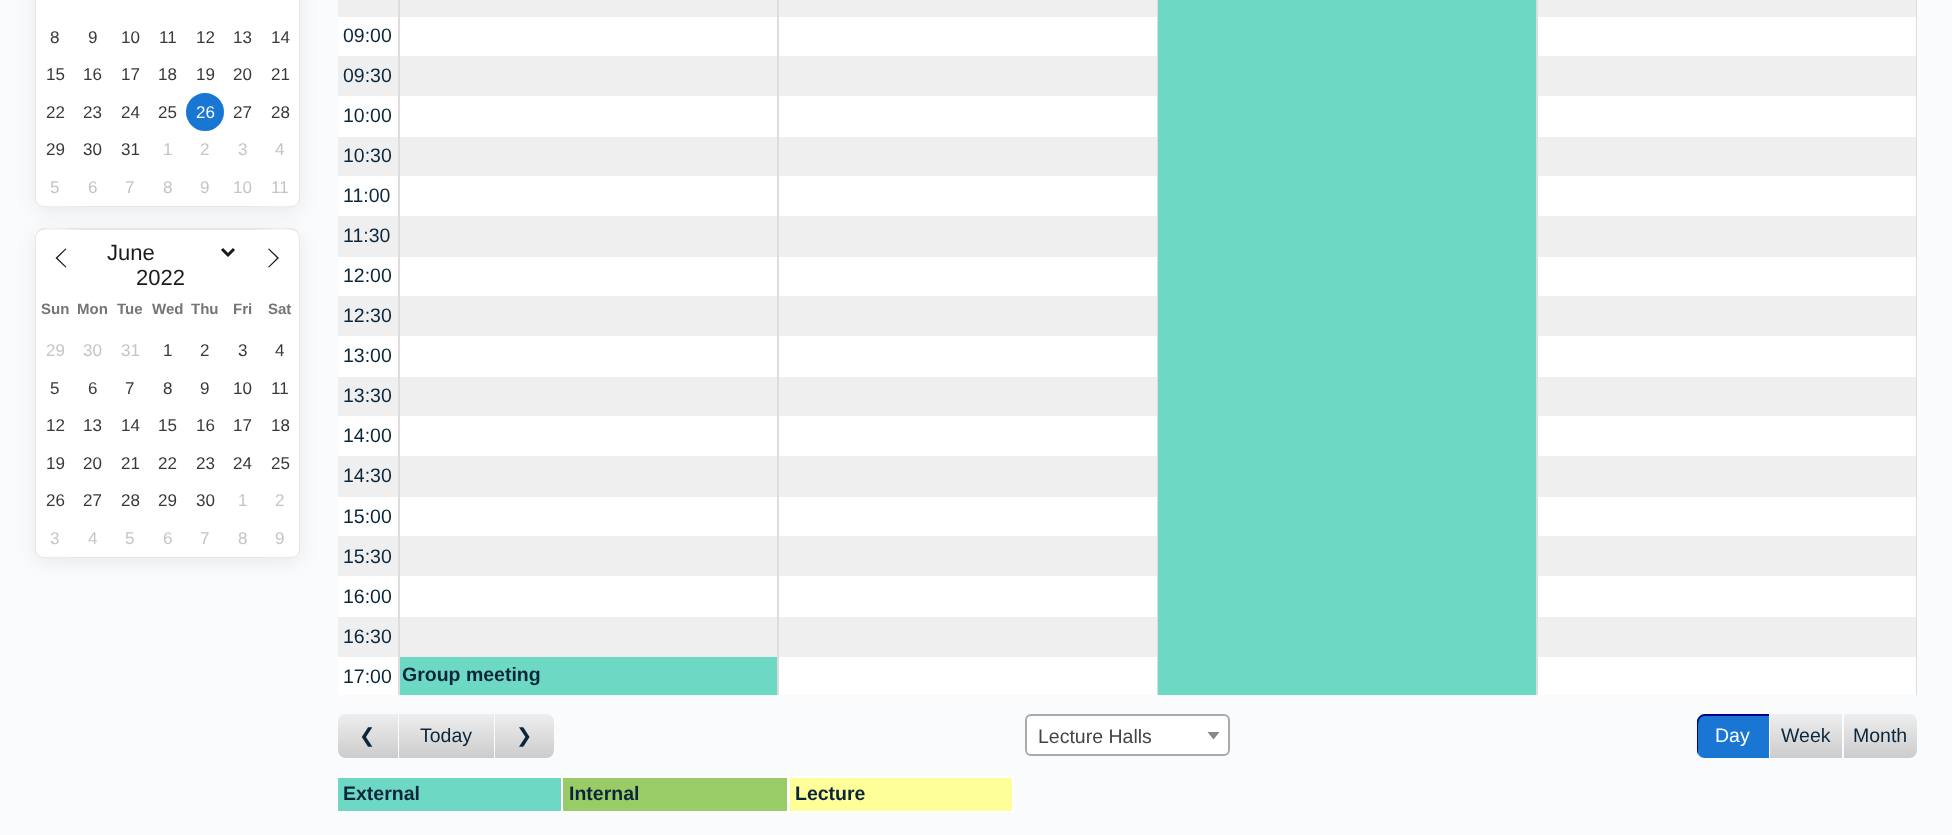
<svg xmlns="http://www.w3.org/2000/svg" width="1952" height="835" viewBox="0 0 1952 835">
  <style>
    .t1 { font: 17px Liberation Sans; fill: #393939; }
    .t2 { font: 17px Liberation Sans; fill: #fff; }
    .t3 { font: 17px Liberation Sans; fill: #c4c4c4; }
    .t4 { font: 22px Liberation Sans; fill: #1a1a1a; }
    .t5 { font: bold 15px Liberation Sans; fill: #757575; }
    .t6 { font: 19.5px Liberation Sans; fill: #0b263b; }
    .t7 { font: bold 19.5px Liberation Sans; fill: #0b263b; }
    .t8 { font: 19.5px DejaVu Sans; fill: #0b263b; }
    .t9 { font: 19.5px Liberation Sans; fill: #444; }
    .t10 { font: 19.5px Liberation Sans; fill: #fff; }
  </style>
  <defs>
    <linearGradient id="g1" gradientUnits="userSpaceOnUse" x1="368" y1="714" x2="368" y2="758"><stop offset="0" stop-color="#eee"/><stop offset="1" stop-color="#ccc"/></linearGradient>
    <linearGradient id="g2" gradientUnits="userSpaceOnUse" x1="446" y1="714" x2="446" y2="758"><stop offset="0" stop-color="#eee"/><stop offset="1" stop-color="#ccc"/></linearGradient>
    <linearGradient id="g3" gradientUnits="userSpaceOnUse" x1="524" y1="714" x2="524" y2="758"><stop offset="0" stop-color="#eee"/><stop offset="1" stop-color="#ccc"/></linearGradient>
    <linearGradient id="g4" gradientUnits="userSpaceOnUse" x1="1806" y1="714" x2="1806" y2="758"><stop offset="0" stop-color="#eee"/><stop offset="1" stop-color="#ccc"/></linearGradient>
    <linearGradient id="g5" gradientUnits="userSpaceOnUse" x1="1880" y1="714" x2="1880" y2="758"><stop offset="0" stop-color="#eee"/><stop offset="1" stop-color="#ccc"/></linearGradient>
    <clipPath id="clip1"><rect x="338" y="0" width="1579" height="813"/></clipPath>
  </defs>
  <rect width="100%" height="100%" fill="#f9fbfc"/>
  <rect x="36" y="-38" width="263" height="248" rx="8" fill="#00000014" filter="blur(10px)"/>
  <path d="M36 198V199C36 203 40 207 44 207H291C295 207 299 203 299 199V-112L298-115V198C298 212 265 206 250 206H85C70 206 36 212 36 198Z" fill="#e6e6e6"/>
  <path d="M39-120C36-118 35-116 35-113V198C35 202 39 206 43 206H289L292 205L44 206C39 206 36 202 36 198V-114C36-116 37-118 39-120Z" fill="#e6e6e6"/>
  <path d="M43 205L46 206H292C296 206 300 202 300 198V-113C300-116 298-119 295-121C297-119 298-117 298-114V198C298 202 295 206 291 206Z" fill="#e6e6e6"/>
  <rect x="36" y="-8" width="263" height="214" rx="8" fill="#fff"/>
  <text x="50" y="43" class="t1">8</text>
  <text x="88" y="43" class="t1">9</text>
  <text x="121" y="43" class="t1">10</text>
  <text x="159" y="43" class="t1">11</text>
  <text x="196" y="43" class="t1">12</text>
  <text x="233" y="43" class="t1">13</text>
  <text x="271" y="43" class="t1">14</text>
  <text x="46" y="80" class="t1">15</text>
  <text x="83" y="80" class="t1">16</text>
  <text x="121" y="80" class="t1">17</text>
  <text x="158" y="80" class="t1">18</text>
  <text x="196" y="80" class="t1">19</text>
  <text x="233" y="80" class="t1">20</text>
  <text x="271" y="80" class="t1">21</text>
  <text x="46" y="118" class="t1">22</text>
  <text x="83" y="118" class="t1">23</text>
  <text x="121" y="118" class="t1">24</text>
  <text x="158" y="118" class="t1">25</text>
  <circle cx="205" cy="112" r="18" fill="#1976d2" stroke="#1976d2" stroke-width="2"/>
  <text x="196" y="118" class="t2">26</text>
  <text x="233" y="118" class="t1">27</text>
  <text x="271" y="118" class="t1">28</text>
  <text x="46" y="155" class="t1">29</text>
  <text x="83" y="155" class="t1">30</text>
  <text x="121" y="155" class="t1">31</text>
  <text x="163" y="155" class="t3">1</text>
  <text x="200" y="155" class="t3">2</text>
  <text x="238" y="155" class="t3">3</text>
  <text x="275" y="155" class="t3">4</text>
  <text x="50" y="193" class="t3">5</text>
  <text x="88" y="193" class="t3">6</text>
  <text x="125" y="193" class="t3">7</text>
  <text x="163" y="193" class="t3">8</text>
  <text x="200" y="193" class="t3">9</text>
  <text x="233" y="193" class="t3">10</text>
  <text x="271" y="193" class="t3">11</text>
  <rect x="36" y="234" width="263" height="327" rx="8" fill="#00000014" filter="blur(10px)"/>
  <path d="M44 228C39 228 36 232 36 237C36 223 70 230 85 230H250C265 230 298 223 298 237V550L299 547V236C299 232 295 228 291 228Z" fill="#e6e6e6"/>
  <path d="M36 549V550C36 554 40 558 44 558H291C295 558 299 554 299 550V239L298 236V549C298 563 265 556 250 556H85C70 556 36 563 36 549Z" fill="#e6e6e6"/>
  <path d="M39 231C36 233 35 235 35 238V549C35 553 39 557 43 557H289L292 556H44C39 556 36 553 36 549V237C36 235 37 233 39 231Z" fill="#e6e6e6"/>
  <path d="M43 556L46 557H292C296 557 300 553 300 549V238C300 235 298 232 295 230C297 232 298 234 298 237V549C298 553 295 556 291 556Z" fill="#e6e6e6"/>
  <rect x="36" y="230" width="263" height="327" rx="8" fill="#fff"/>
  <path d="M57.5 258L66.5 267L65.5 267.5L55.5 258L65.5 248.5L66.5 249Z" fill="#1a1a1a"/>
  <path d="M222 249L228 255L234 249" fill="none" stroke="#1a1a1a" stroke-width="3"/>
  <text x="107" y="260" class="t4">June</text>
  <text x="136" y="285" class="t4">2022</text>
  <path d="M279 258L269 267.5L268 267L277 258L268 249L269 248.5Z" fill="#1a1a1a"/>
  <text x="41" y="314" class="t5">Sun</text>
  <text x="77" y="314" class="t5">Mon</text>
  <text x="117" y="314" class="t5">Tue</text>
  <text x="152" y="314" class="t5">Wed</text>
  <text x="191" y="314" class="t5">Thu</text>
  <text x="233" y="314" class="t5">Fri</text>
  <text x="268" y="314" class="t5">Sat</text>
  <text x="46" y="356" class="t3">29</text>
  <text x="83" y="356" class="t3">30</text>
  <text x="121" y="356" class="t3">31</text>
  <text x="163" y="356" class="t1">1</text>
  <text x="200" y="356" class="t1">2</text>
  <text x="238" y="356" class="t1">3</text>
  <text x="275" y="356" class="t1">4</text>
  <text x="50" y="394" class="t1">5</text>
  <text x="88" y="394" class="t1">6</text>
  <text x="125" y="394" class="t1">7</text>
  <text x="163" y="394" class="t1">8</text>
  <text x="200" y="394" class="t1">9</text>
  <text x="233" y="394" class="t1">10</text>
  <text x="271" y="394" class="t1">11</text>
  <text x="46" y="431" class="t1">12</text>
  <text x="83" y="431" class="t1">13</text>
  <text x="121" y="431" class="t1">14</text>
  <text x="158" y="431" class="t1">15</text>
  <text x="196" y="431" class="t1">16</text>
  <text x="233" y="431" class="t1">17</text>
  <text x="271" y="431" class="t1">18</text>
  <text x="46" y="469" class="t1">19</text>
  <text x="83" y="469" class="t1">20</text>
  <text x="121" y="469" class="t1">21</text>
  <text x="158" y="469" class="t1">22</text>
  <text x="196" y="469" class="t1">23</text>
  <text x="233" y="469" class="t1">24</text>
  <text x="271" y="469" class="t1">25</text>
  <text x="46" y="506" class="t1">26</text>
  <text x="83" y="506" class="t1">27</text>
  <text x="121" y="506" class="t1">28</text>
  <text x="158" y="506" class="t1">29</text>
  <text x="196" y="506" class="t1">30</text>
  <text x="238" y="506" class="t3">1</text>
  <text x="275" y="506" class="t3">2</text>
  <text x="50" y="544" class="t3">3</text>
  <text x="88" y="544" class="t3">4</text>
  <text x="125" y="544" class="t3">5</text>
  <text x="163" y="544" class="t3">6</text>
  <text x="200" y="544" class="t3">7</text>
  <text x="238" y="544" class="t3">8</text>
  <text x="275" y="544" class="t3">9</text>
  <rect x="338" y="0" width="60" height="17" fill="#efefef"/>
  <rect x="398" y="0" width="2" height="695" fill="#ddd"/>
  <rect x="400" y="0" width="377" height="17" fill="#efefef"/>
  <rect x="777" y="0" width="2" height="695" fill="#ddd"/>
  <rect x="779" y="0" width="378" height="17" fill="#efefef"/>
  <rect x="1157" y="0" width="1" height="695" fill="#ddd"/>
  <rect x="1536" y="0" width="2" height="695" fill="#ddd"/>
  <rect x="1158" y="0" width="378" height="695" fill="#6dd9c4"/>
  <rect x="1538" y="0" width="378" height="17" fill="#efefef"/>
  <rect x="1916" y="0" width="1" height="695" fill="#ddd"/>
  <rect x="338" y="17" width="60" height="39" fill="#fff"/>
  <text x="343" y="42" class="t6">09:00</text>
  <rect x="400" y="17" width="377" height="39" fill="#fff"/>
  <rect x="779" y="17" width="378" height="39" fill="#fff"/>
  <rect x="1538" y="17" width="378" height="39" fill="#fff"/>
  <rect x="338" y="56" width="60" height="40" fill="#efefef"/>
  <text x="343" y="82" class="t6">09:30</text>
  <rect x="400" y="56" width="377" height="40" fill="#efefef"/>
  <rect x="779" y="56" width="378" height="40" fill="#efefef"/>
  <rect x="1538" y="56" width="378" height="40" fill="#efefef"/>
  <rect x="338" y="96" width="60" height="41" fill="#fff"/>
  <text x="343" y="122" class="t6">10:00</text>
  <rect x="400" y="96" width="377" height="41" fill="#fff"/>
  <rect x="779" y="96" width="378" height="41" fill="#fff"/>
  <rect x="1538" y="96" width="378" height="41" fill="#fff"/>
  <rect x="338" y="137" width="60" height="39" fill="#efefef"/>
  <text x="343" y="162" class="t6">10:30</text>
  <rect x="400" y="137" width="377" height="39" fill="#efefef"/>
  <rect x="779" y="137" width="378" height="39" fill="#efefef"/>
  <rect x="1538" y="137" width="378" height="39" fill="#efefef"/>
  <rect x="338" y="176" width="60" height="40" fill="#fff"/>
  <text x="343" y="202" class="t6">11:00</text>
  <rect x="400" y="176" width="377" height="40" fill="#fff"/>
  <rect x="779" y="176" width="378" height="40" fill="#fff"/>
  <rect x="1538" y="176" width="378" height="40" fill="#fff"/>
  <rect x="338" y="216" width="60" height="41" fill="#efefef"/>
  <text x="343" y="242" class="t6">11:30</text>
  <rect x="400" y="216" width="377" height="41" fill="#efefef"/>
  <rect x="779" y="216" width="378" height="41" fill="#efefef"/>
  <rect x="1538" y="216" width="378" height="41" fill="#efefef"/>
  <rect x="338" y="257" width="60" height="39" fill="#fff"/>
  <text x="343" y="282" class="t6">12:00</text>
  <rect x="400" y="257" width="377" height="39" fill="#fff"/>
  <rect x="779" y="257" width="378" height="39" fill="#fff"/>
  <rect x="1538" y="257" width="378" height="39" fill="#fff"/>
  <rect x="338" y="296" width="60" height="40" fill="#efefef"/>
  <text x="343" y="322" class="t6">12:30</text>
  <rect x="400" y="296" width="377" height="40" fill="#efefef"/>
  <rect x="779" y="296" width="378" height="40" fill="#efefef"/>
  <rect x="1538" y="296" width="378" height="40" fill="#efefef"/>
  <rect x="338" y="336" width="60" height="41" fill="#fff"/>
  <text x="343" y="362" class="t6">13:00</text>
  <rect x="400" y="336" width="377" height="41" fill="#fff"/>
  <rect x="779" y="336" width="378" height="41" fill="#fff"/>
  <rect x="1538" y="336" width="378" height="41" fill="#fff"/>
  <rect x="338" y="377" width="60" height="39" fill="#efefef"/>
  <text x="343" y="402" class="t6">13:30</text>
  <rect x="400" y="377" width="377" height="39" fill="#efefef"/>
  <rect x="779" y="377" width="378" height="39" fill="#efefef"/>
  <rect x="1538" y="377" width="378" height="39" fill="#efefef"/>
  <rect x="338" y="416" width="60" height="40" fill="#fff"/>
  <text x="343" y="442" class="t6">14:00</text>
  <rect x="400" y="416" width="377" height="40" fill="#fff"/>
  <rect x="779" y="416" width="378" height="40" fill="#fff"/>
  <rect x="1538" y="416" width="378" height="40" fill="#fff"/>
  <rect x="338" y="456" width="60" height="41" fill="#efefef"/>
  <text x="343" y="482" class="t6">14:30</text>
  <rect x="400" y="456" width="377" height="41" fill="#efefef"/>
  <rect x="779" y="456" width="378" height="41" fill="#efefef"/>
  <rect x="1538" y="456" width="378" height="41" fill="#efefef"/>
  <rect x="338" y="497" width="60" height="39" fill="#fff"/>
  <text x="343" y="523" class="t6">15:00</text>
  <rect x="400" y="497" width="377" height="39" fill="#fff"/>
  <rect x="779" y="497" width="378" height="39" fill="#fff"/>
  <rect x="1538" y="497" width="378" height="39" fill="#fff"/>
  <rect x="338" y="536" width="60" height="40" fill="#efefef"/>
  <text x="343" y="563" class="t6">15:30</text>
  <rect x="400" y="536" width="377" height="40" fill="#efefef"/>
  <rect x="779" y="536" width="378" height="40" fill="#efefef"/>
  <rect x="1538" y="536" width="378" height="40" fill="#efefef"/>
  <rect x="338" y="576" width="60" height="41" fill="#fff"/>
  <text x="343" y="603" class="t6">16:00</text>
  <rect x="400" y="576" width="377" height="41" fill="#fff"/>
  <rect x="779" y="576" width="378" height="41" fill="#fff"/>
  <rect x="1538" y="576" width="378" height="41" fill="#fff"/>
  <rect x="338" y="617" width="60" height="40" fill="#efefef"/>
  <text x="343" y="643" class="t6">16:30</text>
  <rect x="400" y="617" width="377" height="40" fill="#efefef"/>
  <rect x="779" y="617" width="378" height="40" fill="#efefef"/>
  <rect x="1538" y="617" width="378" height="40" fill="#efefef"/>
  <rect x="338" y="657" width="60" height="38" fill="#fff"/>
  <text x="343" y="683" class="t6">17:00</text>
  <rect x="400" y="657" width="377" height="38" fill="#6dd9c4"/>
  <text x="402" y="681" class="t7">Group meeting</text>
  <rect x="779" y="657" width="378" height="38" fill="#fff"/>
  <rect x="1538" y="657" width="378" height="38" fill="#fff"/>
  <path d="M346 714H399V758H346C341.5 758 338 754.5 338 750V722C338 717.5 341.5 714 346 714Z" fill="url(#g1)"/>
  <rect x="398" y="714" width="1" height="44" fill="#f9fbfc"/>
  <text x="359" y="742" class="t8">❮</text>
  <rect x="399" y="714" width="95" height="44" fill="url(#g2)"/>
  <text x="420" y="742" class="t6">Today</text>
  <path d="M495 714H546C550.5 714 554 717.5 554 722V750C554 754.5 550.5 758 546 758H495Z" fill="url(#g3)"/>
  <text x="516" y="742" class="t8">❯</text>
  <rect x="1026" y="715" width="203" height="40" rx="5" fill="#fff" stroke="#aaa" stroke-width="2"/>
  <text x="1038" y="743" class="t9">Lecture Halls</text>
  <path d="M1207.5 732H1219.5L1213.5 739.5Z" fill="#888"/>
  <path d="M1705 714H1770V758H1705C1700.5 758 1697 754.5 1697 750V722C1697 717.5 1700.5 714 1705 714Z" fill="#1976d2"/>
  <path d="M1706 716H1769V714H1705C1701 714 1697 718 1697 722V750C1697 752 1698 753 1698 755V747V728C1698 722 1698 716 1706 716Z" fill="#00008b"/>
  <rect x="1769" y="714" width="1" height="44" fill="#f9fbfc"/>
  <text x="1715" y="742" class="t10">Day</text>
  <rect x="1770" y="714" width="72" height="44" fill="url(#g4)"/>
  <text x="1781" y="742" class="t6">Week</text>
  <path d="M1844 714H1909C1913.5 714 1917 717.5 1917 722V750C1917 754.5 1913.5 758 1909 758H1844Z" fill="url(#g5)"/>
  <text x="1853" y="742" class="t6">Month</text>
  <rect x="338" y="778" width="223" height="33" fill="#6dd9c4"/>
  <g clip-path="url(#clip1)">
    <rect x="337" y="777" width="225" height="35" fill="none" stroke="#fff" stroke-width="2"/>
  </g>
  <text x="343" y="800" class="t7">External</text>
  <rect x="562" y="777" width="226" height="35" fill="#9c6" stroke="#fff" stroke-width="2"/>
  <text x="569" y="800" class="t7">Internal</text>
  <rect x="789" y="777" width="224" height="35" fill="#ff9" stroke="#fff" stroke-width="2"/>
  <text x="795" y="800" class="t7">Lecture</text>
</svg>
